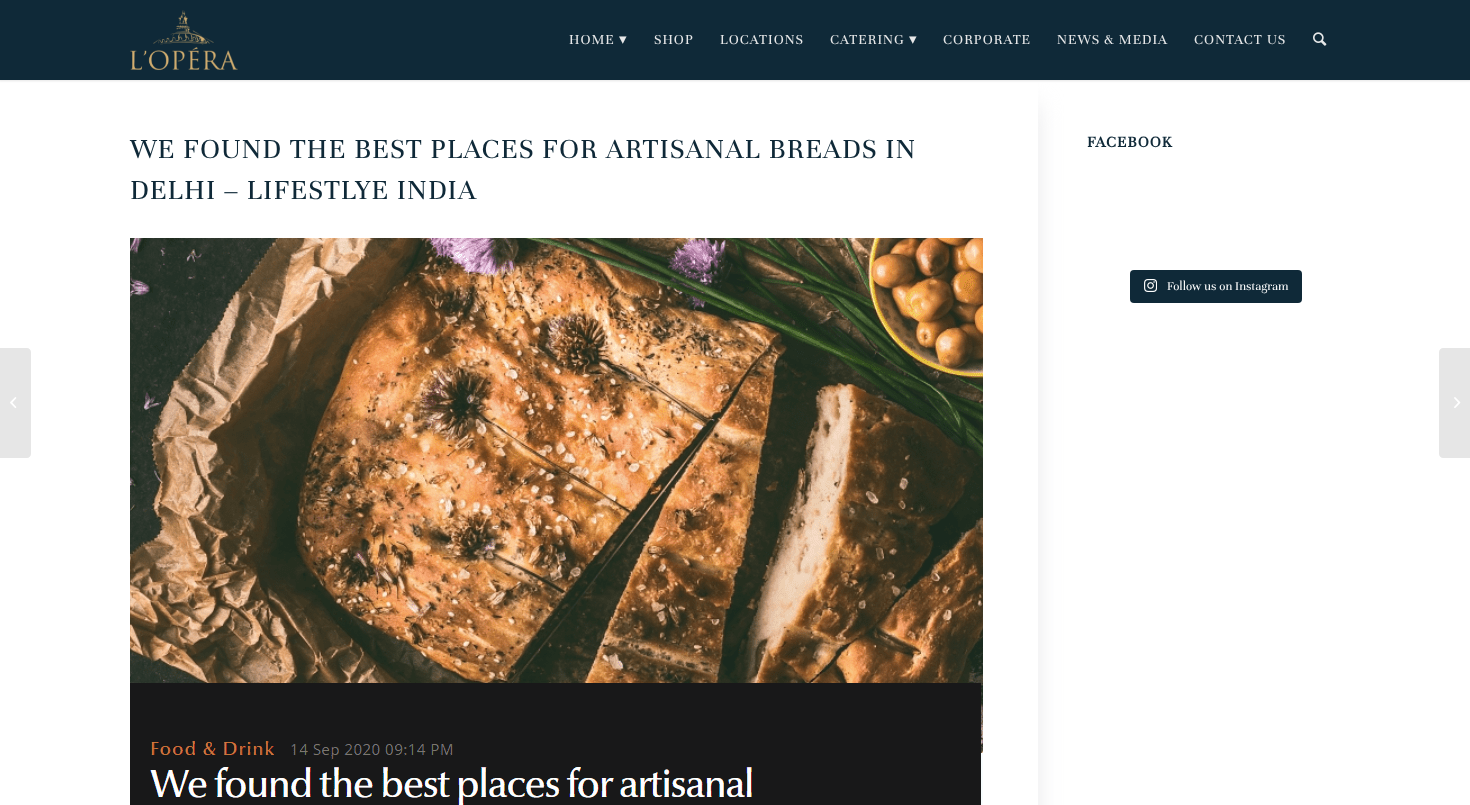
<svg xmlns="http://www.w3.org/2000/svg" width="1470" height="805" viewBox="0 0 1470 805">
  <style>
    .t1 { font: 15px Unna; letter-spacing: 1px; fill: #e6e7e8; }
    .t2 { font: 15px DejaVu Sans; letter-spacing: 1px; fill: #e6e7e8; }
    .t3 { font: 30px Unna; letter-spacing: 1px; fill: #0f2938; }
    .t4 { font: bold 16.5px Unna; letter-spacing: 1px; fill: #0f2938; }
    .t5 { font: 13px Unna; fill: #fff; }
  </style>
  <defs>
    <clipPath id="clip1"><rect x="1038" y="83" width="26" height="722"/></clipPath>
  </defs>
  <rect width="100%" height="100%" fill="#fff"/>
  <rect x="-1" y="-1" width="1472" height="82" fill="#0000001a" filter="blur(1px)"/>
  <g clip-path="url(#clip1)">
    <rect x="180" y="105" width="858" height="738" fill="#e9e9eb" filter="blur(12.5px)"/>
  </g>
  <rect x="0" y="0" width="1470" height="80" fill="#0f2938"/>
  <image x="130" y="10" width="108" height="61" href="images/1.png"/>
  <text x="569" y="44" class="t1">HOME</text>
  <text x="619" y="44" class="t2">▾</text>
  <text x="654" y="44" class="t1">SHOP</text>
  <text x="720" y="44" class="t1">LOCATIONS</text>
  <text x="830" y="44" class="t1">CATERING</text>
  <text x="909" y="44" class="t2">▾</text>
  <text x="943" y="44" class="t1">CORPORATE</text>
  <text x="1057" y="44" class="t1">NEWS &amp; MEDIA</text>
  <text x="1194" y="44" class="t1">CONTACT US</text>
  <image x="1313" y="32" width="14" height="14" href="images/2.png"/>
  <text x="130" y="158" class="t3">WE FOUND THE BEST PLACES FOR ARTISANAL BREADS IN</text>
  <text x="130" y="199" class="t3">DELHI – LIFESTLYE INDIA</text>
  <image x="130" y="238" width="853" height="567" href="images/3.png"/>
  <text x="1087" y="147" class="t4">FACEBOOK</text>
  <rect x="1130" y="270" width="172" height="33" rx="4" fill="#0f2938"/>
  <image x="1144" y="279" width="13" height="13" href="images/4.png"/>
  <text x="1167" y="290" class="t5">Follow us on Instagram</text>
  <path d="M0 348H27C29 348 31 350 31 352V454C31 456 29 458 27 458H0Z" fill="#e6e6e6"/>
  <image x="10" y="397" width="7" height="11" href="images/5.png"/>
  <path d="M1443 348H1470V458H1443C1441 458 1439 456 1439 454V352C1439 350 1441 348 1443 348Z" fill="#e6e6e6"/>
  <image x="1454" y="397" width="7" height="11" href="images/6.png"/>
</svg>
